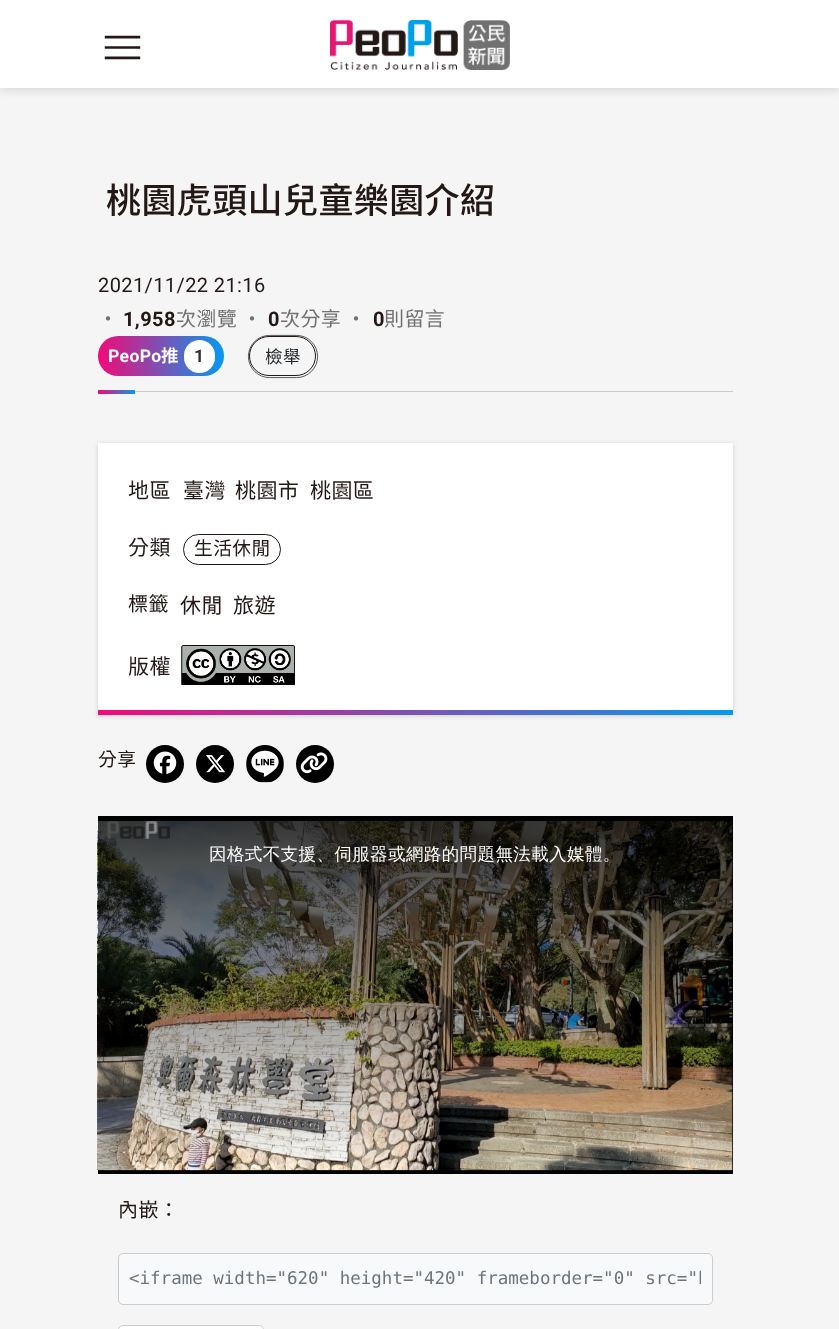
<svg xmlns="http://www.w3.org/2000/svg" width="839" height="1329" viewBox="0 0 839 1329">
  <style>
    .t1 { font: 500 35px Noto Sans TC; letter-spacing: 0.4px; fill: #231815; }
    .t2 { font: 20px Roboto; letter-spacing: 0.4px; fill: #231815; }
    .t3 { font: 20px Noto Sans TC; letter-spacing: 0.4px; fill: #727171; }
    .t4 { font: bold 20px Roboto; letter-spacing: 0.4px; fill: #231815; }
    .t5 { font: bold 17.5px Roboto; letter-spacing: 0.4px; fill: #fff; }
    .t6 { font: 600 17.5px Noto Sans TC; letter-spacing: 0.4px; fill: #fff; }
    .t7 { font: bold 17.5px Roboto; letter-spacing: 0.4px; fill: #333; }
    .t8 { font: 17.5px Noto Sans TC; letter-spacing: 0.4px; fill: #212529; }
    .t9 { font: 21px Noto Sans TC; letter-spacing: 0.4px; fill: #231815; }
    .t10 { font: 18.75px Noto Sans TC; letter-spacing: 0.4px; fill: #231815; }
    .t11 { font: 20px Noto Sans TC; letter-spacing: 0.4px; fill: #231815; }
    .t12 { font: 500 17.5px WenQuanYi Zen Hei; letter-spacing: 0.4px; fill: #fff; }
    .t13 { font: 17.5px DejaVu Sans Mono; fill: #6c757d; }
  </style>
  <defs>
    <linearGradient id="g1" gradientUnits="userSpaceOnUse" x1="224" y1="356" x2="98" y2="356"><stop offset="0" stop-color="#0599f0"/><stop offset="1" stop-color="#f20a78"/></linearGradient>
    <linearGradient id="g2" gradientUnits="userSpaceOnUse" x1="135" y1="392" x2="98" y2="392"><stop offset="0" stop-color="#0599f0"/><stop offset="1" stop-color="#f20a78"/></linearGradient>
    <linearGradient id="g3" gradientUnits="userSpaceOnUse" x1="733" y1="713" x2="98" y2="713"><stop offset="0" stop-color="#0599f0"/><stop offset="1" stop-color="#f20a78"/></linearGradient>
    <linearGradient id="g4" gradientUnits="userSpaceOnUse" x1="415" y1="816" x2="415" y2="1174"><stop offset="0" stop-color="#000" stop-opacity="0.8"/><stop offset="1" stop-color="#000" stop-opacity="0"/></linearGradient>
    <clipPath id="clip1"><rect x="129" y="1264" width="572" height="30"/></clipPath>
  </defs>
  <rect width="100%" height="100%" fill="#f5f5f5"/>
  <rect x="0" y="1" width="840" height="88" fill="#00000026" filter="blur(5.5px)"/>
  <rect x="0" y="0" width="839" height="88" fill="#fff"/>
  <image x="104" y="35" width="37" height="25" href="images/1.png"/>
  <image x="330" y="20" width="180" height="50" href="images/2.png"/>
  <text x="106" y="213" class="t1">桃園虎頭山兒童樂園介紹</text>
  <rect x="135" y="391" width="598" height="1" fill="#cdcbca"/>
  <text x="98" y="292" class="t2">2021/11/22 21:16</text>
  <text x="98" y="326" class="t3">・</text>
  <text x="123" y="326" class="t4">1,958</text>
  <text x="176" y="326" class="t3">次瀏覽 ・</text>
  <text x="268" y="326" class="t4">0</text>
  <text x="280" y="326" class="t3">次分享 ・</text>
  <text x="373" y="326" class="t4">0</text>
  <text x="384" y="326" class="t3">則留言</text>
  <rect x="98" y="336" width="126" height="40" rx="20" fill="url(#g1)"/>
  <text x="108" y="362" class="t5">PeoPo</text>
  <text x="161" y="362" class="t6">推</text>
  <rect x="184" y="340" width="31" height="33" rx="15.5" fill="#fff"/>
  <text x="194" y="362" class="t7">1</text>
  <rect x="248.4" y="335.4" width="69.2" height="42.2" rx="21.1" fill="none" stroke="#313131" stroke-width="0.8"/>
  <rect x="249.5" y="336.5" width="66" height="39" rx="19.5" fill="none" stroke="#231815"/>
  <text x="265" y="363" class="t8">檢舉</text>
  <rect x="98" y="390" width="37" height="4" fill="url(#g2)"/>
  <rect x="98" y="444" width="635" height="272" fill="#00000026" filter="blur(2.5px)"/>
  <rect x="98" y="443" width="635" height="267" fill="#fff"/>
  <text x="128" y="498" class="t9">地區</text>
  <text x="183" y="498" class="t9">臺灣</text>
  <text x="235" y="498" class="t9">桃園市</text>
  <text x="310" y="498" class="t9">桃園區</text>
  <text x="128" y="555" class="t9">分類</text>
  <rect x="183.5" y="534.5" width="97" height="30" rx="15" fill="none" stroke="#231815"/>
  <text x="194" y="555" class="t10">生活休閒</text>
  <text x="128" y="611" class="t11">標籤</text>
  <text x="180" y="613" class="t9">休閒</text>
  <text x="233" y="613" class="t9">旅遊</text>
  <text x="128" y="674" class="t9">版權</text>
  <image x="181" y="645" width="114" height="40" href="images/3.png"/>
  <rect x="98" y="710" width="635" height="5" fill="url(#g3)"/>
  <text x="98" y="766" class="t10">分享</text>
  <circle cx="165" cy="764" r="19" fill="#000"/>
  <image x="153" y="751" width="24" height="23" href="images/4.png"/>
  <circle cx="215" cy="764" r="19" fill="#000"/>
  <image x="206" y="755" width="19" height="18" href="images/5.png"/>
  <circle cx="265" cy="764" r="19" fill="#fff"/>
  <image x="246" y="745" width="38" height="38" href="images/6.png"/>
  <circle cx="315" cy="764" r="19" fill="#000"/>
  <image x="300" y="752" width="28" height="22" href="images/7.png"/>
  <rect x="98" y="816" width="635" height="358" fill="#000"/>
  <image x="97" y="821" width="636" height="349" href="images/9.png"/>
  <image x="97" y="821" width="635" height="350" href="images/10.png"/>
  <rect x="98" y="821" width="635" height="343" fill="url(#g4)"/>
  <image x="107" y="821" width="63" height="18" href="images/8.png"/>
  <text x="209" y="860" class="t12">因格式不支援、伺服器或網路的問題無法載入媒體。</text>
  <text x="118" y="1217" class="t11">內嵌：</text>
  <rect x="118.5" y="1253.5" width="594" height="51" rx="4.5" fill="#f8f9fa" stroke="#ccc"/>
  <g clip-path="url(#clip1)">
    <text x="129" y="1284" class="t13">&lt;iframe width="620" height="420" frameborder="0" src="h</text>
  </g>
  <rect x="118.5" y="1325.5" width="145" height="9" rx="4.5" fill="#fff" stroke="#ccc"/>
</svg>
